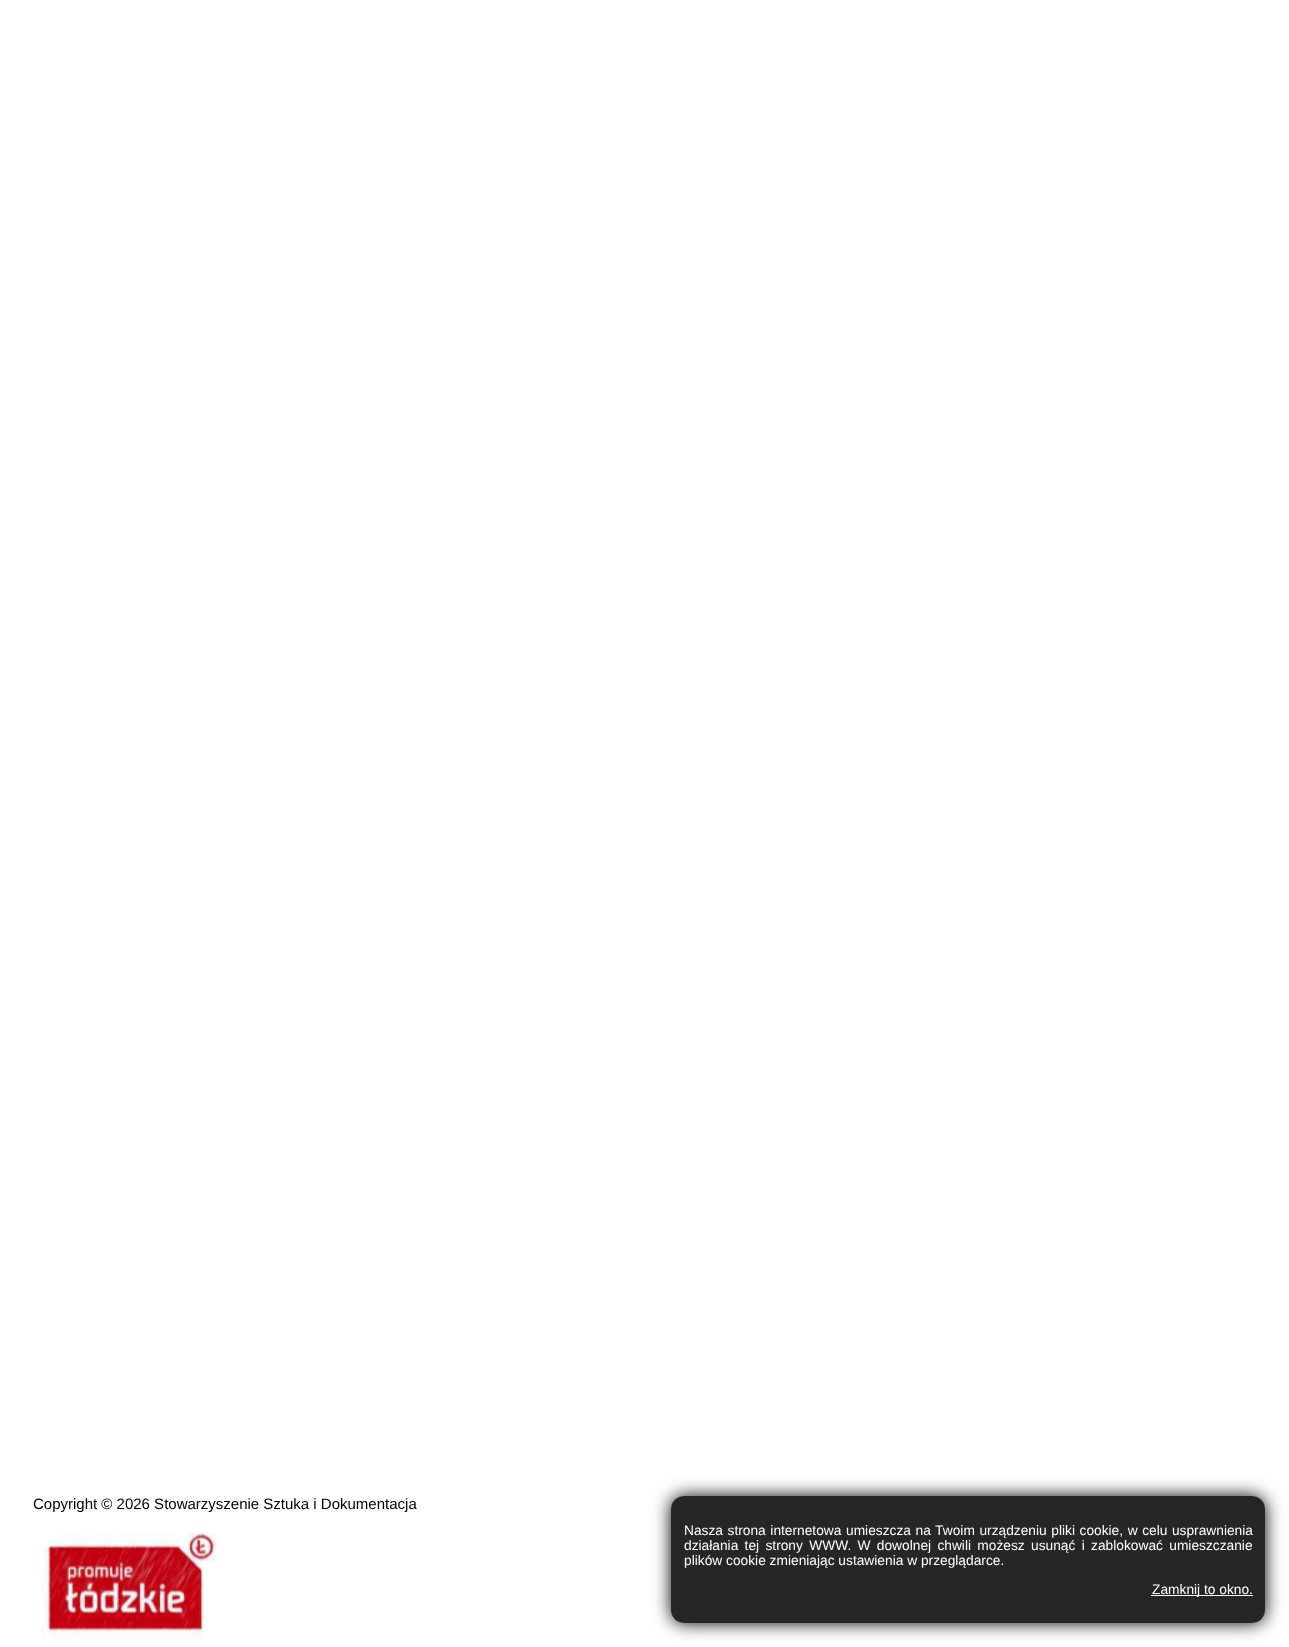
<svg xmlns="http://www.w3.org/2000/svg" width="1289" height="1647" viewBox="0 0 1289 1647">
  <style>
    .t1 { font: 15px Liberation Sans; fill: #000; }
    .t2 { font: 13.75px Liberation Sans; fill: #fff; }
  </style>
  <defs>
    <clipPath id="clip1"><path d="M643 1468H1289V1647H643ZM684 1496H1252C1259 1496 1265 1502 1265 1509V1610C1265 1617 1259 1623 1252 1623H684C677 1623 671 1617 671 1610V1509C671 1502 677 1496 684 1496Z" clip-rule="evenodd"/></clipPath>
  </defs>
  <rect width="100%" height="100%" fill="#fff"/>
  <text x="33" y="1509" class="t1">Copyright © 2026 Stowarzyszenie Sztuka i Dokumentacja</text>
  <image x="42" y="1532" width="175" height="109" href="images/1.png"/>
  <g clip-path="url(#clip1)">
    <rect x="671" y="1496" width="594" height="127" rx="13" fill="#000" filter="blur(9px)"/>
  </g>
  <rect x="671" y="1496" width="594" height="127" rx="13" fill="#000000d9"/>
  <text x="684" y="1535" word-spacing="0.75" class="t2">Nasza strona internetowa umieszcza na Twoim urządzeniu pliki cookie, w celu usprawnienia</text>
  <text x="684" y="1550" word-spacing="2.5" class="t2">działania tej strony WWW. W dowolnej chwili możesz usunąć i zablokować umieszczanie</text>
  <text x="684" y="1565" class="t2">plików cookie zmieniając ustawienia w przeglądarce.</text>
  <rect x="1151" y="1595" width="102" height="1" fill="#fff"/>
  <text x="1152" y="1594" class="t2">Zamknij to okno.</text>
</svg>
